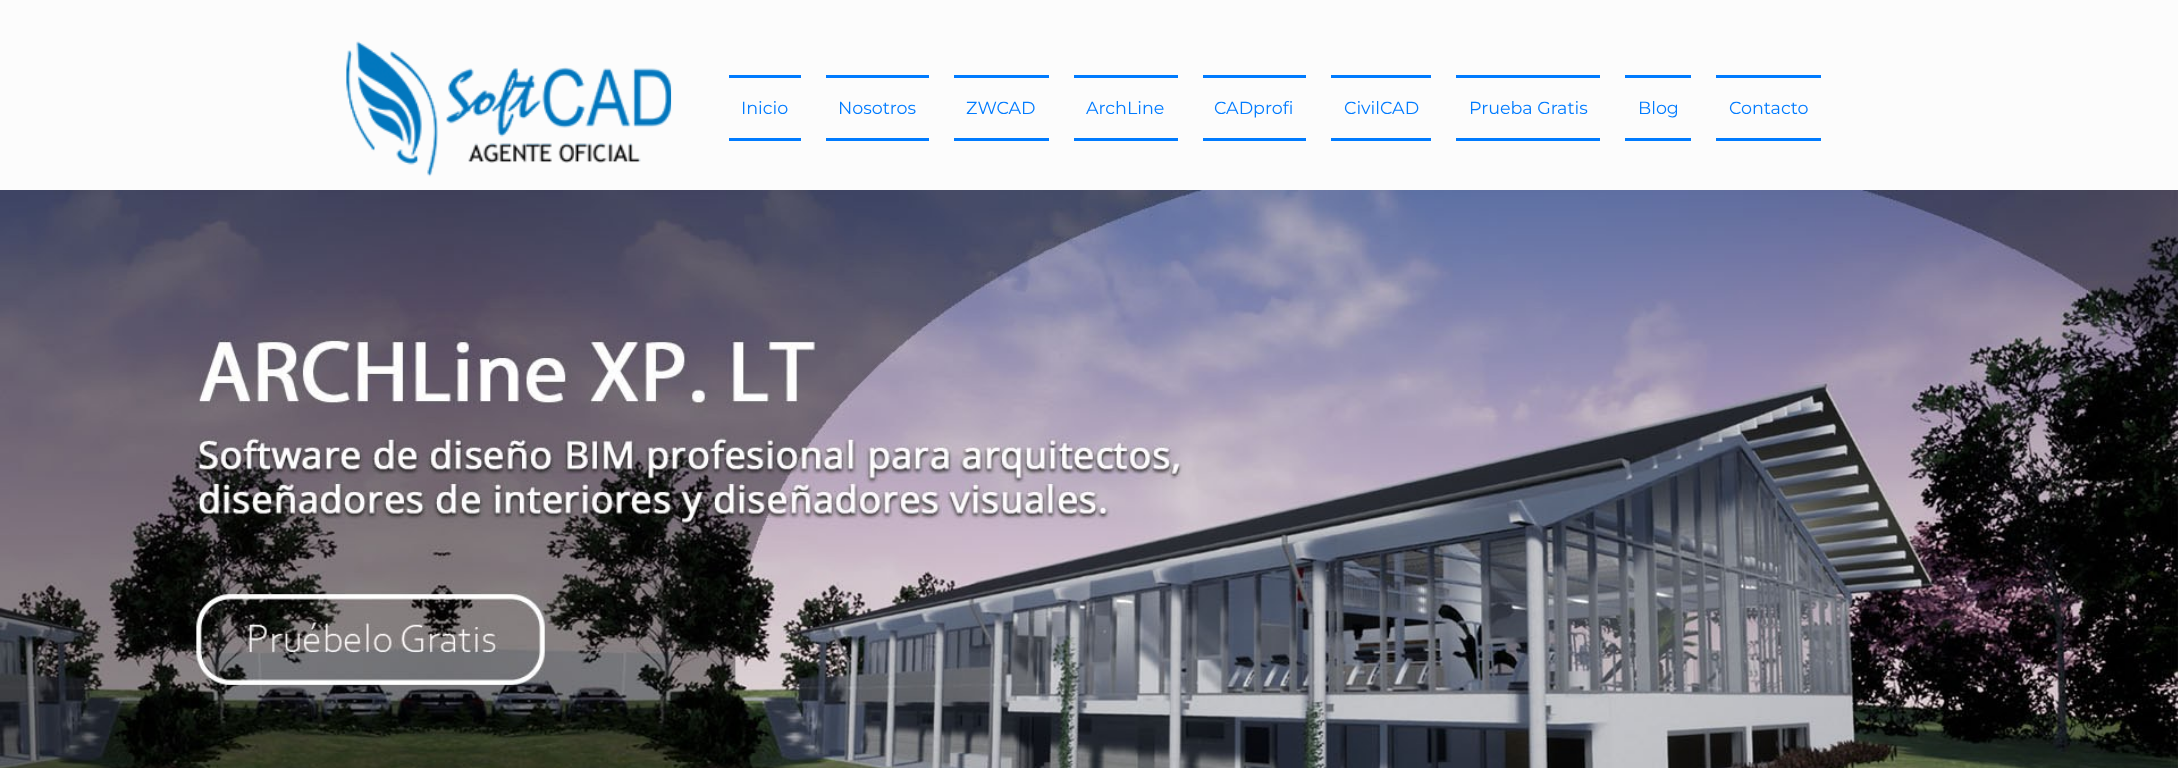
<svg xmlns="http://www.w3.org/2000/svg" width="2178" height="768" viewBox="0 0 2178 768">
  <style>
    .t1 { font: 17.5px Montserrat; fill: #007bff; }
  </style>
  <rect width="100%" height="100%" fill="#fcfcfc"/>
  <image x="346" y="41" width="326" height="136" href="images/1.png"/>
  <rect x="729" y="75" width="72" height="3" fill="#007bff"/>
  <rect x="729" y="138" width="72" height="3" fill="#007bff"/>
  <text x="741" y="114" class="t1">Inicio</text>
  <rect x="826" y="75" width="103" height="3" fill="#007bff"/>
  <rect x="826" y="138" width="103" height="3" fill="#007bff"/>
  <text x="838" y="114" class="t1">Nosotros</text>
  <rect x="954" y="75" width="95" height="3" fill="#007bff"/>
  <rect x="954" y="138" width="95" height="3" fill="#007bff"/>
  <text x="966" y="114" class="t1">ZWCAD</text>
  <rect x="1074" y="75" width="104" height="3" fill="#007bff"/>
  <rect x="1074" y="138" width="104" height="3" fill="#007bff"/>
  <text x="1086" y="114" class="t1">ArchLine</text>
  <rect x="1203" y="75" width="103" height="3" fill="#007bff"/>
  <rect x="1203" y="138" width="103" height="3" fill="#007bff"/>
  <text x="1214" y="114" class="t1">CADprofi</text>
  <rect x="1331" y="75" width="100" height="3" fill="#007bff"/>
  <rect x="1331" y="138" width="100" height="3" fill="#007bff"/>
  <text x="1344" y="114" class="t1">CivilCAD</text>
  <rect x="1456" y="75" width="144" height="3" fill="#007bff"/>
  <rect x="1456" y="138" width="144" height="3" fill="#007bff"/>
  <text x="1469" y="114" class="t1">Prueba Gratis</text>
  <rect x="1625" y="75" width="66" height="3" fill="#007bff"/>
  <rect x="1625" y="138" width="66" height="3" fill="#007bff"/>
  <text x="1638" y="114" class="t1">Blog</text>
  <rect x="1716" y="75" width="105" height="3" fill="#007bff"/>
  <rect x="1716" y="138" width="105" height="3" fill="#007bff"/>
  <text x="1729" y="114" class="t1">Contacto</text>
  <image x="0" y="190" width="2178" height="578" href="images/2.png"/>
</svg>
